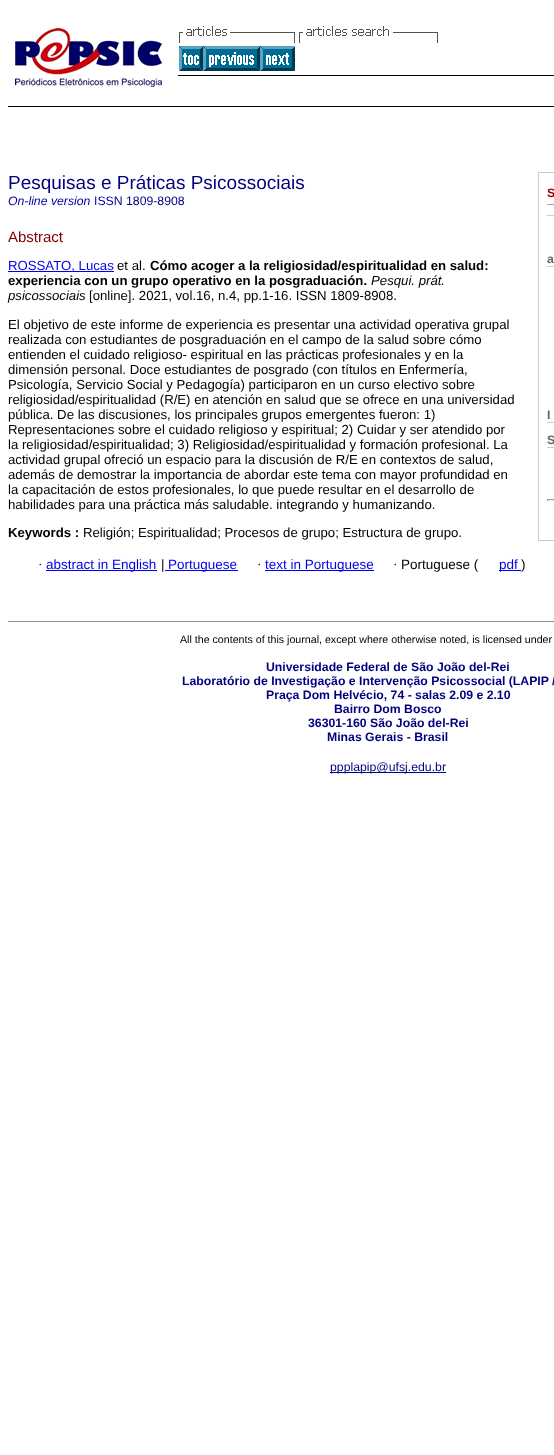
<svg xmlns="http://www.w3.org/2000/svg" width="554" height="1455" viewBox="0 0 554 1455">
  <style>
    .t1 { font: 19px Liberation Sans; fill: #000080; }
    .t2 { font: italic 12.25px Liberation Sans; fill: #0000a0; }
    .t3 { font: 12.25px Liberation Sans; fill: #0000a0; }
    .t4 { font: 12.25px Liberation Sans; fill: #000080; }
    .t5 { font: bold 12.25px Liberation Sans; fill: #900; }
    .t6 { font: bold 12.25px Liberation Sans; fill: #666; }
    .t7 { font: 15px Liberation Sans; fill: #800000; }
    .t8 { font: 13.2px Liberation Sans; fill: #00e; }
    .t9 { font: 13.2px Liberation Sans; fill: #000; }
    .t10 { font: bold 13.2px Liberation Sans; fill: #000; }
    .t11 { font: italic 13.2px Liberation Sans; fill: #000; }
    .t12 { font: 13.5px Liberation Serif; fill: #000080; }
    .t13 { font: 13.5px Liberation Sans; fill: #00e; }
    .t14 { font: 13.5px Liberation Sans; fill: #000; }
    .t15 { font: 10.65px Liberation Sans; fill: #000; }
    .t16 { font: bold 12.25px Liberation Sans; fill: #000080; }
  </style>
  <rect width="100%" height="100%" fill="#fff"/>
  <rect x="8" y="106" width="546" height="1" fill="#000"/>
  <image x="15" y="28" width="147" height="59" href="images/1.png"/>
  <rect x="178" y="75" width="376" height="1" fill="#000"/>
  <image x="179" y="26" width="116" height="17" href="images/2.png"/>
  <image x="299" y="26" width="139" height="17" href="images/3.png"/>
  <image x="179" y="46" width="24" height="25" href="images/4.png"/>
  <image x="203" y="46" width="57" height="25" href="images/5.png"/>
  <image x="260" y="46" width="35" height="25" href="images/6.png"/>
  <rect x="8" y="621" width="546" height="1" fill="#8d8d8d"/>
  <text x="8" y="189" class="t1">Pesquisas e Práticas Psicossociais</text>
  <text x="8" y="205" class="t2">On-line version</text>
  <text x="94" y="205" class="t3">ISSN</text>
  <text x="126" y="205" class="t4">1809-8908</text>
  <rect x="538.5" y="172.5" width="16" height="368" fill="none" stroke="#ccc"/>
  <rect x="547" y="204" width="7" height="1" fill="#be9595"/>
  <text x="547" y="197" class="t5">S</text>
  <rect x="547" y="215" width="7" height="1" fill="#ccc"/>
  <rect x="547" y="266" width="7" height="1" fill="#ccc"/>
  <text x="547" y="263" class="t6">a</text>
  <rect x="547" y="422" width="7" height="1" fill="#ccc"/>
  <text x="547" y="419" class="t6">I</text>
  <rect x="547" y="447" width="7" height="1" fill="#ccc"/>
  <text x="547" y="444" class="t6">S</text>
  <rect x="547" y="499" width="7" height="1" fill="#9f9f9f"/>
  <rect x="547" y="500" width="7" height="1" fill="#eee"/>
  <rect x="547" y="499" width="1" height="2" fill="#9f9f9f"/>
  <text x="8" y="242" class="t7">Abstract</text>
  <rect x="8" y="271" width="106" height="1" fill="#00e"/>
  <text x="8" y="270" class="t8">ROSSATO, Lucas</text>
  <text x="117" y="270" class="t9">et al.</text>
  <text x="150" y="270" class="t10">Cómo acoger a la religiosidad/espiritualidad en salud:</text>
  <text x="8" y="285" class="t10">experiencia con un grupo operativo en la posgraduación.</text>
  <text x="371" y="285" class="t11">Pesqui. prát.</text>
  <text x="8" y="300" class="t11">psicossociais</text>
  <text x="89" y="300" class="t9">[online]. 2021, vol.16, n.4, pp.1-16. ISSN 1809-8908.</text>
  <text x="8" y="329" class="t9">El objetivo de este informe de experiencia es presentar una actividad operativa grupal</text>
  <text x="8" y="344" class="t9">realizada con estudiantes de posgraduación en el campo de la salud sobre cómo</text>
  <text x="8" y="359" class="t9">entienden el cuidado religioso- espiritual en las prácticas profesionales y en la</text>
  <text x="8" y="374" class="t9">dimensión personal. Doce estudiantes de posgrado (con títulos en Enfermería,</text>
  <text x="8" y="389" class="t9">Psicología, Servicio Social y Pedagogía) participaron en un curso electivo sobre</text>
  <text x="8" y="404" class="t9">religiosidad/espiritualidad (R/E) en atención en salud que se ofrece en una universidad</text>
  <text x="8" y="419" class="t9">pública. De las discusiones, los principales grupos emergentes fueron: 1)</text>
  <text x="8" y="434" class="t9">Representaciones sobre el cuidado religioso y espiritual; 2) Cuidar y ser atendido por</text>
  <text x="8" y="449" class="t9">la religiosidad/espiritualidad; 3) Religiosidad/espiritualidad y formación profesional. La</text>
  <text x="8" y="464" class="t9">actividad grupal ofreció un espacio para la discusión de R/E en contextos de salud,</text>
  <text x="8" y="479" class="t9">además de demostrar la importancia de abordar este tema con mayor profundidad en</text>
  <text x="8" y="494" class="t9">la capacitación de estos profesionales, lo que puede resultar en el desarrollo de</text>
  <text x="8" y="509" class="t9">habilidades para una práctica más saludable. integrando y humanizando.</text>
  <text x="8" y="537" class="t10">Keywords :</text>
  <text x="83" y="537" class="t9">Religión; Espiritualidad; Procesos de grupo; Estructura de grupo.</text>
  <text x="38" y="569" class="t12">·</text>
  <rect x="46" y="570" width="111" height="1" fill="#00e"/>
  <text x="46" y="569" class="t13">abstract in English</text>
  <text x="161" y="569" class="t14">|</text>
  <rect x="165" y="570" width="73" height="1" fill="#00e"/>
  <text x="168" y="569" class="t13">Portuguese</text>
  <text x="257" y="569" class="t12">·</text>
  <rect x="265" y="570" width="109" height="1" fill="#00e"/>
  <text x="265" y="569" class="t13">text in Portuguese</text>
  <text x="393" y="569" class="t12">·</text>
  <text x="401" y="569" class="t14">Portuguese (</text>
  <rect x="499" y="570" width="22" height="1" fill="#00e"/>
  <text x="499" y="569" class="t13">pdf</text>
  <text x="521" y="569" class="t14">)</text>
  <text x="180" y="643" class="t15">All the contents of this journal, except where otherwise noted, is licensed under</text>
  <text x="266" y="671" class="t16">Universidade Federal de São João del-Rei</text>
  <text x="182" y="685" class="t16">Laboratório de Investigação e Intervenção Psicossocial (LAPIP /</text>
  <text x="266" y="699" class="t16">Praça Dom Helvécio, 74 - salas 2.09 e 2.10</text>
  <text x="334" y="713" class="t16">Bairro Dom Bosco</text>
  <text x="308" y="727" class="t16">36301-160 São João del-Rei</text>
  <text x="327" y="741" class="t16">Minas Gerais - Brasil</text>
  <rect x="330" y="772" width="116" height="1" fill="#000080"/>
  <text x="330" y="771" class="t4">ppplapip@ufsj.edu.br</text>
</svg>
